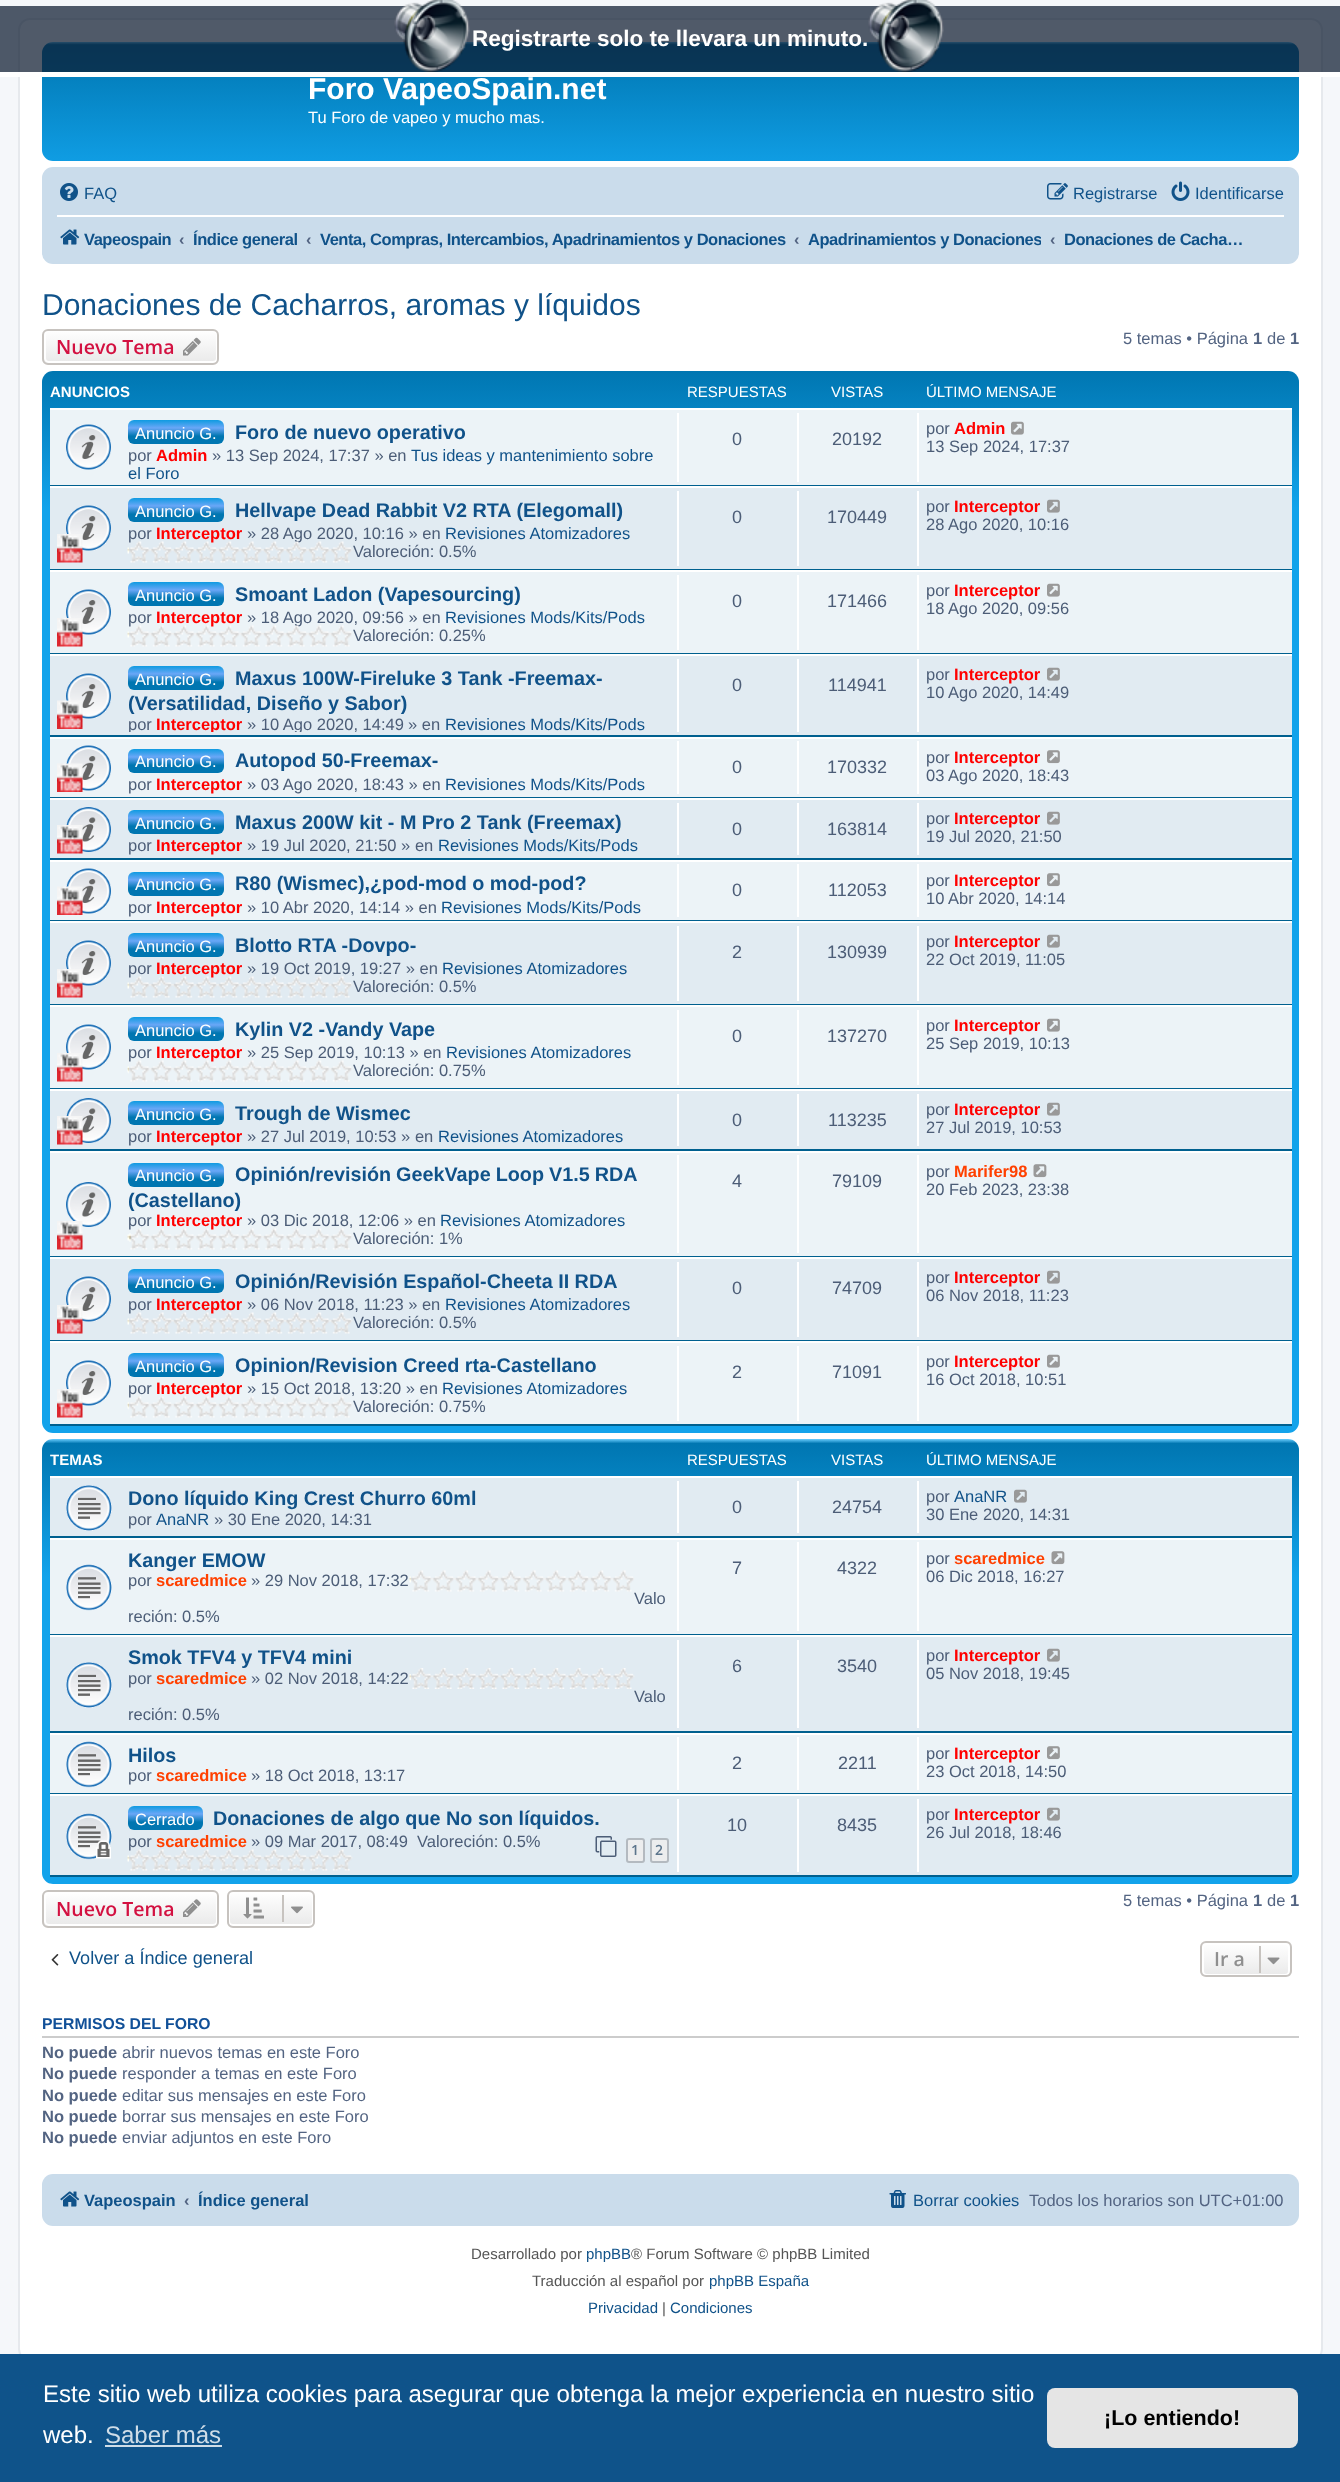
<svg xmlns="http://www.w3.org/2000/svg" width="1340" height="2482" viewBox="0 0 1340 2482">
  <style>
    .t1 { font: bold 22.5px Liberation Sans; fill: #fff; }
    .t2 { font: bold 30px Liberation Sans; fill: #fff; }
    .t3 { font: 16.5px Liberation Sans; fill: #fff; }
    .t4 { font: 16.5px Liberation Sans; fill: #105289; }
    .t5 { font: bold 16.5px Liberation Sans; letter-spacing: -0.45px; fill: #105289; }
    .t6 { font: bold 16.5px Liberation Sans; fill: #536482; }
    .t7 { font: 30px Liberation Sans; fill: #105289; }
    .t8 { font: 600 19.5px Open Sans; fill: #d31141; }
    .t9 { font: 16.5px Liberation Sans; fill: #536482; }
    .t10 { font: bold 15px Liberation Sans; fill: #fff; }
    .t11 { font: 15px Liberation Sans; fill: #fff; }
    .t12 { font: bold 19.8px Liberation Sans; fill: #105289; }
    .t13 { font: 16.5px Liberation Sans; fill: #4c5d77; }
    .t14 { font: bold 16.5px Liberation Sans; fill: #f00; }
    .t15 { font: 18px Liberation Sans; fill: #4c5d77; }
    .t16 { font: bold 16.5px Liberation Sans; fill: #ff4000; }
    .t17 { font: 600 14px Open Sans; fill: #5c758c; }
    .t18 { font: 18.1px Liberation Sans; fill: #105289; }
    .t19 { font: 600 19.5px Open Sans; fill: #8f8f8f; }
    .t20 { font: bold 15.75px Liberation Sans; fill: #115098; }
    .t21 { font: bold 16.5px Liberation Sans; fill: #105289; }
    .t22 { font: 15px Liberation Sans; fill: #555; }
    .t23 { font: 15px Liberation Sans; fill: #105289; }
    .t24 { font: 24px Liberation Sans; fill: #fff; }
    .t25 { font: 24px Liberation Sans; fill: #cfdde8; }
    .t26 { font: bold 21.5px Liberation Sans; fill: #000; }
  </style>
  <defs>
    <linearGradient id="g1" gradientUnits="userSpaceOnUse" x1="671" y1="42" x2="671" y2="180"><stop offset="0" stop-color="#6aceff"/><stop offset="0.02" stop-color="#0076b1"/><stop offset="1" stop-color="#12a3eb"/></linearGradient>
    <clipPath id="clip1"><rect x="807" y="221" width="234" height="36"/></clipPath>
    <clipPath id="clip2"><rect x="42" y="329" width="177" height="36" rx="6"/></clipPath>
    <linearGradient id="g2" gradientUnits="userSpaceOnUse" x1="131" y1="330" x2="131" y2="363"><stop offset="0" stop-color="#fff"/><stop offset="1" stop-color="#e9e9e9"/></linearGradient>
    <linearGradient id="g3" gradientUnits="userSpaceOnUse" x1="670" y1="370" x2="671" y2="1433"><stop offset="0" stop-color="#6aceff"/><stop offset="0" stop-color="#0076b1"/><stop offset="0.13" stop-color="#12a3eb"/><stop offset="1" stop-color="#12a3eb"/></linearGradient>
    <linearGradient id="g4" gradientUnits="userSpaceOnUse" x1="176" y1="420" x2="176" y2="444"><stop offset="0" stop-color="#0f9be1"/><stop offset="0.33" stop-color="#6aa7f7"/><stop offset="0.67" stop-color="#0076b1"/><stop offset="1" stop-color="#0076b1"/></linearGradient>
    <linearGradient id="g5" gradientUnits="userSpaceOnUse" x1="176" y1="498" x2="176" y2="522"><stop offset="0" stop-color="#0f9be1"/><stop offset="0.33" stop-color="#6aa7f7"/><stop offset="0.67" stop-color="#0076b1"/><stop offset="1" stop-color="#0076b1"/></linearGradient>
    <linearGradient id="g6" gradientUnits="userSpaceOnUse" x1="176" y1="582" x2="176" y2="606"><stop offset="0" stop-color="#0f9be1"/><stop offset="0.33" stop-color="#6aa7f7"/><stop offset="0.67" stop-color="#0076b1"/><stop offset="1" stop-color="#0076b1"/></linearGradient>
    <linearGradient id="g7" gradientUnits="userSpaceOnUse" x1="176" y1="666" x2="176" y2="690"><stop offset="0" stop-color="#0f9be1"/><stop offset="0.33" stop-color="#6aa7f7"/><stop offset="0.67" stop-color="#0076b1"/><stop offset="1" stop-color="#0076b1"/></linearGradient>
    <clipPath id="clip3"><rect x="50" y="659" width="1242" height="73"/></clipPath>
    <linearGradient id="g8" gradientUnits="userSpaceOnUse" x1="176" y1="749" x2="176" y2="773"><stop offset="0" stop-color="#0f9be1"/><stop offset="0.33" stop-color="#6aa7f7"/><stop offset="0.67" stop-color="#0076b1"/><stop offset="1" stop-color="#0076b1"/></linearGradient>
    <linearGradient id="g9" gradientUnits="userSpaceOnUse" x1="176" y1="810" x2="176" y2="834"><stop offset="0" stop-color="#0f9be1"/><stop offset="0.33" stop-color="#6aa7f7"/><stop offset="0.67" stop-color="#0076b1"/><stop offset="1" stop-color="#0076b1"/></linearGradient>
    <linearGradient id="g10" gradientUnits="userSpaceOnUse" x1="176" y1="872" x2="176" y2="896"><stop offset="0" stop-color="#0f9be1"/><stop offset="0.33" stop-color="#6aa7f7"/><stop offset="0.67" stop-color="#0076b1"/><stop offset="1" stop-color="#0076b1"/></linearGradient>
    <linearGradient id="g11" gradientUnits="userSpaceOnUse" x1="176" y1="933" x2="176" y2="957"><stop offset="0" stop-color="#0f9be1"/><stop offset="0.33" stop-color="#6aa7f7"/><stop offset="0.67" stop-color="#0076b1"/><stop offset="1" stop-color="#0076b1"/></linearGradient>
    <linearGradient id="g12" gradientUnits="userSpaceOnUse" x1="176" y1="1017" x2="176" y2="1041"><stop offset="0" stop-color="#0f9be1"/><stop offset="0.33" stop-color="#6aa7f7"/><stop offset="0.67" stop-color="#0076b1"/><stop offset="1" stop-color="#0076b1"/></linearGradient>
    <linearGradient id="g13" gradientUnits="userSpaceOnUse" x1="176" y1="1101" x2="176" y2="1125"><stop offset="0" stop-color="#0f9be1"/><stop offset="0.33" stop-color="#6aa7f7"/><stop offset="0.67" stop-color="#0076b1"/><stop offset="1" stop-color="#0076b1"/></linearGradient>
    <linearGradient id="g14" gradientUnits="userSpaceOnUse" x1="176" y1="1163" x2="176" y2="1187"><stop offset="0" stop-color="#0f9be1"/><stop offset="0.33" stop-color="#6aa7f7"/><stop offset="0.67" stop-color="#0076b1"/><stop offset="1" stop-color="#0076b1"/></linearGradient>
    <linearGradient id="g15" gradientUnits="userSpaceOnUse" x1="176" y1="1269" x2="176" y2="1293"><stop offset="0" stop-color="#0f9be1"/><stop offset="0.33" stop-color="#6aa7f7"/><stop offset="0.67" stop-color="#0076b1"/><stop offset="1" stop-color="#0076b1"/></linearGradient>
    <linearGradient id="g16" gradientUnits="userSpaceOnUse" x1="176" y1="1353" x2="176" y2="1377"><stop offset="0" stop-color="#0f9be1"/><stop offset="0.33" stop-color="#6aa7f7"/><stop offset="0.67" stop-color="#0076b1"/><stop offset="1" stop-color="#0076b1"/></linearGradient>
    <linearGradient id="g17" gradientUnits="userSpaceOnUse" x1="671" y1="1439" x2="671" y2="1884"><stop offset="0" stop-color="#6aceff"/><stop offset="0.01" stop-color="#0076b1"/><stop offset="0.31" stop-color="#12a3eb"/><stop offset="1" stop-color="#12a3eb"/></linearGradient>
    <clipPath id="clip4"><rect x="50" y="1446" width="1242" height="30"/></clipPath>
    <linearGradient id="g18" gradientUnits="userSpaceOnUse" x1="165" y1="1806" x2="165" y2="1830"><stop offset="0" stop-color="#0f9be1"/><stop offset="0.33" stop-color="#6aa7f7"/><stop offset="0.67" stop-color="#0076b1"/><stop offset="1" stop-color="#0076b1"/></linearGradient>
    <clipPath id="clip5"><rect x="42" y="1890" width="177" height="38" rx="6"/></clipPath>
    <linearGradient id="g19" gradientUnits="userSpaceOnUse" x1="131" y1="1892" x2="131" y2="1926"><stop offset="0" stop-color="#fff"/><stop offset="1" stop-color="#e9e9e9"/></linearGradient>
    <clipPath id="clip6"><rect x="227" y="1890" width="88" height="38" rx="6"/></clipPath>
    <linearGradient id="g20" gradientUnits="userSpaceOnUse" x1="271" y1="1892" x2="271" y2="1926"><stop offset="0" stop-color="#fff"/><stop offset="1" stop-color="#e9e9e9"/></linearGradient>
    <clipPath id="clip7"><rect x="1200" y="1941" width="92" height="36" rx="6"/></clipPath>
    <linearGradient id="g21" gradientUnits="userSpaceOnUse" x1="1246" y1="1943" x2="1246" y2="1976"><stop offset="0" stop-color="#fff"/><stop offset="1" stop-color="#e9e9e9"/></linearGradient>
  </defs>
  <rect width="100%" height="100%" fill="#f5f7fa"/>
  <rect x="19" y="19" width="1303" height="2341" rx="11" fill="#fff" stroke="#e6e9ed" stroke-width="2"/>
  <rect x="42" y="42" width="1257" height="119" rx="11" fill="url(#g1)"/>
  <rect x="0" y="6" width="1340" height="66" fill="#0c1a2fb8"/>
  <rect x="0" y="72" width="1340" height="5" fill="#fff"/>
  <image x="394" y="0" width="76" height="72" href="images/1.png"/>
  <text x="472" y="46" class="t1">Registrarte solo te llevara un minuto.</text>
  <image x="868" y="0" width="76" height="72" href="images/1.png"/>
  <text x="308" y="99" class="t2">Foro VapeoSpain.net</text>
  <text x="308" y="123" class="t3">Tu Foro de vapeo y mucho mas.</text>
  <rect x="42" y="167" width="1257" height="97" rx="11" fill="#cadceb"/>
  <image x="60" y="183" width="18" height="18" href="images/2.png"/>
  <text x="84" y="199" class="t4">FAQ</text>
  <image x="1047" y="183" width="21" height="17" href="images/3.png"/>
  <text x="1073" y="199" class="t4">Registrarse</text>
  <image x="1171" y="181" width="19" height="20" href="images/4.png"/>
  <text x="1195" y="199" class="t4">Identificarse</text>
  <rect x="57" y="215" width="1227" height="2" fill="#fff"/>
  <image x="60" y="229" width="20" height="16" href="images/5.png"/>
  <text x="84" y="245" class="t5">Vapeospain</text>
  <text x="179" y="245" class="t6">‹</text>
  <text x="193" y="245" class="t5">Índice general</text>
  <text x="306" y="245" class="t6">‹</text>
  <text x="320" y="245" class="t5">Venta, Compras, Intercambios, Apadrinamientos y Donaciones</text>
  <text x="794" y="245" class="t6">‹</text>
  <g clip-path="url(#clip1)">
    <text x="808" y="245" class="t5">Apadrinamientos y Donaciones</text>
  </g>
  <text x="1050" y="245" class="t6">‹</text>
  <text x="1064" y="245" class="t5">Donaciones de Cacha…</text>
  <text x="42" y="315" class="t7">Donaciones de Cacharros, aromas y líquidos</text>
  <g clip-path="url(#clip2)">
    <rect x="42" y="330" width="177" height="33" fill="url(#g2)"/>
  </g>
  <rect x="45" y="331" width="172" height="31" rx="4" fill="none" stroke="#fff" stroke-width="2"/>
  <rect x="43" y="330" width="175" height="34" rx="5" fill="none" stroke="#c7c3bf" stroke-width="2"/>
  <text x="56" y="354" class="t8">Nuevo Tema</text>
  <image x="183" y="337" width="18" height="19" href="images/6.png"/>
  <text x="1123" y="344" class="t9">5 temas • Página</text>
  <text x="1253" y="344" class="t6">1</text>
  <text x="1267" y="344" class="t9">de</text>
  <text x="1290" y="344" class="t6">1</text>
  <rect x="42" y="371" width="1257" height="1062" rx="11" fill="url(#g3)"/>
  <text x="50" y="397" class="t10">ANUNCIOS</text>
  <text x="687" y="397" class="t11">RESPUESTAS</text>
  <text x="831" y="397" class="t11">VISTAS</text>
  <text x="926" y="397" class="t11">ÚLTIMO MENSAJE</text>
  <rect x="50" y="410" width="1242" height="75" fill="#ecf3f7"/>
  <rect x="50" y="408" width="1242" height="2" fill="#fff"/>
  <rect x="50" y="485" width="1242" height="1" fill="#00608f"/>
  <image x="66" y="424" width="45" height="46" href="images/7.png"/>
  <rect x="128" y="420" width="96" height="24" rx="6" fill="url(#g4)"/>
  <text x="135" y="439" class="t3">Anuncio G.</text>
  <text x="235" y="439" class="t12">Foro de nuevo operativo</text>
  <text x="128" y="461" class="t13">por</text>
  <text x="156" y="461" class="t14">Admin</text>
  <text x="212" y="461" class="t13">» 13 Sep 2024, 17:37 » en</text>
  <text x="411" y="461" class="t4">Tus ideas y mantenimiento sobre</text>
  <text x="128" y="479" class="t4">el Foro</text>
  <rect x="677" y="413" width="2" height="69" fill="#fff"/>
  <text x="732" y="445" class="t15">0</text>
  <rect x="797" y="413" width="2" height="69" fill="#fff"/>
  <text x="832" y="445" class="t15">20192</text>
  <rect x="917" y="413" width="2" height="69" fill="#fff"/>
  <text x="926" y="434" class="t13">por</text>
  <text x="954" y="434" class="t14">Admin</text>
  <image x="1011" y="421" width="13" height="14" href="images/8.png"/>
  <text x="926" y="452" class="t13">13 Sep 2024, 17:37</text>
  <rect x="50" y="488" width="1242" height="81" fill="#e1ebf2"/>
  <rect x="50" y="486" width="1242" height="2" fill="#fff"/>
  <rect x="50" y="569" width="1242" height="1" fill="#00608f"/>
  <image x="66" y="505" width="45" height="46" href="images/9.png"/>
  <image x="57" y="534" width="26" height="29" href="images/10.png"/>
  <rect x="128" y="498" width="96" height="24" rx="6" fill="url(#g5)"/>
  <text x="135" y="517" class="t3">Anuncio G.</text>
  <text x="235" y="517" class="t12">Hellvape Dead Rabbit V2 RTA (Elegomall)</text>
  <text x="128" y="539" class="t13">por</text>
  <text x="156" y="539" class="t14">Interceptor</text>
  <text x="247" y="539" class="t13">» 28 Ago 2020, 10:16 » en</text>
  <text x="445" y="539" class="t4">Revisiones Atomizadores</text>
  <image x="127" y="541" width="226" height="22" href="images/11.png"/>
  <image x="127" y="547" width="2" height="7" href="images/12.png"/>
  <text x="353" y="557" class="t13">Valoreción: 0.5%</text>
  <rect x="677" y="491" width="2" height="75" fill="#fff"/>
  <text x="732" y="523" class="t15">0</text>
  <rect x="797" y="491" width="2" height="75" fill="#fff"/>
  <text x="827" y="523" class="t15">170449</text>
  <rect x="917" y="491" width="2" height="75" fill="#fff"/>
  <text x="926" y="512" class="t13">por</text>
  <text x="954" y="512" class="t14">Interceptor</text>
  <image x="1047" y="499" width="13" height="14" href="images/13.png"/>
  <text x="926" y="530" class="t13">28 Ago 2020, 10:16</text>
  <rect x="50" y="572" width="1242" height="81" fill="#ecf3f7"/>
  <rect x="50" y="570" width="1242" height="2" fill="#fff"/>
  <rect x="50" y="653" width="1242" height="1" fill="#00608f"/>
  <image x="66" y="589" width="45" height="46" href="images/7.png"/>
  <image x="57" y="618" width="26" height="29" href="images/14.png"/>
  <rect x="128" y="582" width="96" height="24" rx="6" fill="url(#g6)"/>
  <text x="135" y="601" class="t3">Anuncio G.</text>
  <text x="235" y="601" class="t12">Smoant Ladon (Vapesourcing)</text>
  <text x="128" y="623" class="t13">por</text>
  <text x="156" y="623" class="t14">Interceptor</text>
  <text x="247" y="623" class="t13">» 18 Ago 2020, 09:56 » en</text>
  <text x="445" y="623" class="t4">Revisiones Mods/Kits/Pods</text>
  <image x="129" y="625" width="223" height="22" href="images/15.png"/>
  <image x="127" y="631" width="2" height="7" href="images/16.png"/>
  <text x="353" y="641" class="t13">Valoreción: 0.25%</text>
  <rect x="677" y="575" width="2" height="75" fill="#fff"/>
  <text x="732" y="607" class="t15">0</text>
  <rect x="797" y="575" width="2" height="75" fill="#fff"/>
  <text x="827" y="607" class="t15">171466</text>
  <rect x="917" y="575" width="2" height="75" fill="#fff"/>
  <text x="926" y="596" class="t13">por</text>
  <text x="954" y="596" class="t14">Interceptor</text>
  <image x="1047" y="583" width="13" height="14" href="images/8.png"/>
  <text x="926" y="614" class="t13">18 Ago 2020, 09:56</text>
  <rect x="50" y="656" width="1242" height="79" fill="#e1ebf2"/>
  <rect x="50" y="654" width="1242" height="2" fill="#fff"/>
  <rect x="50" y="735" width="1242" height="2" fill="#00608f"/>
  <image x="66" y="673" width="45" height="46" href="images/9.png"/>
  <image x="57" y="700" width="26" height="29" href="images/17.png"/>
  <rect x="128" y="666" width="96" height="24" rx="6" fill="url(#g7)"/>
  <text x="135" y="685" class="t3">Anuncio G.</text>
  <text x="235" y="685" class="t12">Maxus 100W-Fireluke 3 Tank -Freemax-</text>
  <text x="128" y="710" class="t12">(Versatilidad, Diseño y Sabor)</text>
  <g clip-path="url(#clip3)">
    <text x="128" y="730" class="t13">por</text>
    <text x="156" y="730" class="t14">Interceptor</text>
    <text x="247" y="730" class="t13">» 10 Ago 2020, 14:49</text>
  </g>
  <text x="408" y="730" class="t13">» en</text>
  <text x="445" y="730" class="t4">Revisiones Mods/Kits/Pods</text>
  <rect x="677" y="659" width="2" height="73" fill="#fff"/>
  <text x="732" y="691" class="t15">0</text>
  <rect x="797" y="659" width="2" height="73" fill="#fff"/>
  <text x="828" y="691" class="t15">114941</text>
  <rect x="917" y="659" width="2" height="73" fill="#fff"/>
  <text x="926" y="680" class="t13">por</text>
  <text x="954" y="680" class="t14">Interceptor</text>
  <image x="1047" y="667" width="13" height="14" href="images/13.png"/>
  <text x="926" y="698" class="t13">10 Ago 2020, 14:49</text>
  <rect x="50" y="739" width="1242" height="58" fill="#ecf3f7"/>
  <rect x="50" y="737" width="1242" height="2" fill="#fff"/>
  <rect x="50" y="797" width="1242" height="1" fill="#00608f"/>
  <image x="66" y="745" width="45" height="46" href="images/7.png"/>
  <image x="57" y="763" width="26" height="29" href="images/18.png"/>
  <rect x="128" y="749" width="96" height="24" rx="6" fill="url(#g8)"/>
  <text x="135" y="767" class="t3">Anuncio G.</text>
  <text x="235" y="767" class="t12">Autopod 50-Freemax-</text>
  <text x="128" y="790" class="t13">por</text>
  <text x="156" y="790" class="t14">Interceptor</text>
  <text x="247" y="790" class="t13">» 03 Ago 2020, 18:43 » en</text>
  <text x="445" y="790" class="t4">Revisiones Mods/Kits/Pods</text>
  <rect x="677" y="741" width="2" height="53" fill="#fff"/>
  <text x="732" y="773" class="t15">0</text>
  <rect x="797" y="741" width="2" height="53" fill="#fff"/>
  <text x="827" y="773" class="t15">170332</text>
  <rect x="917" y="741" width="2" height="53" fill="#fff"/>
  <text x="926" y="763" class="t13">por</text>
  <text x="954" y="763" class="t14">Interceptor</text>
  <image x="1047" y="750" width="13" height="14" href="images/19.png"/>
  <text x="926" y="781" class="t13">03 Ago 2020, 18:43</text>
  <rect x="50" y="800" width="1242" height="58" fill="#e1ebf2"/>
  <rect x="50" y="798" width="1242" height="2" fill="#fff"/>
  <rect x="50" y="858" width="1242" height="2" fill="#00608f"/>
  <image x="66" y="807" width="45" height="45" href="images/20.png"/>
  <image x="57" y="825" width="26" height="29" href="images/21.png"/>
  <rect x="128" y="810" width="96" height="24" rx="6" fill="url(#g9)"/>
  <text x="135" y="829" class="t3">Anuncio G.</text>
  <text x="235" y="829" class="t12">Maxus 200W kit - M Pro 2 Tank (Freemax)</text>
  <text x="128" y="851" class="t13">por</text>
  <text x="156" y="851" class="t14">Interceptor</text>
  <text x="247" y="851" class="t13">» 19 Jul 2020, 21:50 » en</text>
  <text x="438" y="851" class="t4">Revisiones Mods/Kits/Pods</text>
  <rect x="677" y="803" width="2" height="52" fill="#fff"/>
  <text x="732" y="835" class="t15">0</text>
  <rect x="797" y="803" width="2" height="52" fill="#fff"/>
  <text x="827" y="835" class="t15">163814</text>
  <rect x="917" y="803" width="2" height="52" fill="#fff"/>
  <text x="926" y="824" class="t13">por</text>
  <text x="954" y="824" class="t14">Interceptor</text>
  <image x="1047" y="811" width="13" height="14" href="images/13.png"/>
  <text x="926" y="842" class="t13">19 Jul 2020, 21:50</text>
  <rect x="50" y="862" width="1242" height="58" fill="#ecf3f7"/>
  <rect x="50" y="860" width="1242" height="2" fill="#fff"/>
  <rect x="50" y="920" width="1242" height="1" fill="#00608f"/>
  <image x="66" y="868" width="45" height="46" href="images/7.png"/>
  <image x="57" y="886" width="26" height="29" href="images/18.png"/>
  <rect x="128" y="872" width="96" height="24" rx="6" fill="url(#g10)"/>
  <text x="135" y="890" class="t3">Anuncio G.</text>
  <text x="235" y="890" class="t12">R80 (Wismec),¿pod-mod o mod-pod?</text>
  <text x="128" y="913" class="t13">por</text>
  <text x="156" y="913" class="t14">Interceptor</text>
  <text x="247" y="913" class="t13">» 10 Abr 2020, 14:14 » en</text>
  <text x="441" y="913" class="t4">Revisiones Mods/Kits/Pods</text>
  <rect x="677" y="864" width="2" height="53" fill="#fff"/>
  <text x="732" y="896" class="t15">0</text>
  <rect x="797" y="864" width="2" height="53" fill="#fff"/>
  <text x="828" y="896" class="t15">112053</text>
  <rect x="917" y="864" width="2" height="53" fill="#fff"/>
  <text x="926" y="886" class="t13">por</text>
  <text x="954" y="886" class="t14">Interceptor</text>
  <image x="1047" y="873" width="13" height="14" href="images/19.png"/>
  <text x="926" y="904" class="t13">10 Abr 2020, 14:14</text>
  <rect x="50" y="923" width="1242" height="81" fill="#e1ebf2"/>
  <rect x="50" y="921" width="1242" height="2" fill="#fff"/>
  <rect x="50" y="1004" width="1242" height="1" fill="#00608f"/>
  <image x="66" y="940" width="45" height="46" href="images/9.png"/>
  <image x="57" y="969" width="26" height="29" href="images/10.png"/>
  <rect x="128" y="933" width="96" height="24" rx="6" fill="url(#g11)"/>
  <text x="135" y="952" class="t3">Anuncio G.</text>
  <text x="235" y="952" class="t12">Blotto RTA -Dovpo-</text>
  <text x="128" y="974" class="t13">por</text>
  <text x="156" y="974" class="t14">Interceptor</text>
  <text x="247" y="974" class="t13">» 19 Oct 2019, 19:27 » en</text>
  <text x="442" y="974" class="t4">Revisiones Atomizadores</text>
  <image x="127" y="976" width="226" height="22" href="images/22.png"/>
  <image x="127" y="982" width="2" height="7" href="images/12.png"/>
  <text x="353" y="992" class="t13">Valoreción: 0.5%</text>
  <rect x="677" y="926" width="2" height="75" fill="#fff"/>
  <text x="732" y="958" class="t15">2</text>
  <rect x="797" y="926" width="2" height="75" fill="#fff"/>
  <text x="827" y="958" class="t15">130939</text>
  <rect x="917" y="926" width="2" height="75" fill="#fff"/>
  <text x="926" y="947" class="t13">por</text>
  <text x="954" y="947" class="t14">Interceptor</text>
  <image x="1047" y="934" width="13" height="14" href="images/13.png"/>
  <text x="926" y="965" class="t13">22 Oct 2019, 11:05</text>
  <rect x="50" y="1007" width="1242" height="81" fill="#ecf3f7"/>
  <rect x="50" y="1005" width="1242" height="2" fill="#fff"/>
  <rect x="50" y="1088" width="1242" height="1" fill="#00608f"/>
  <image x="66" y="1024" width="45" height="46" href="images/7.png"/>
  <image x="57" y="1053" width="26" height="29" href="images/14.png"/>
  <rect x="128" y="1017" width="96" height="24" rx="6" fill="url(#g12)"/>
  <text x="135" y="1036" class="t3">Anuncio G.</text>
  <text x="235" y="1036" class="t12">Kylin V2 -Vandy Vape</text>
  <text x="128" y="1058" class="t13">por</text>
  <text x="156" y="1058" class="t14">Interceptor</text>
  <text x="247" y="1058" class="t13">» 25 Sep 2019, 10:13 » en</text>
  <text x="446" y="1058" class="t4">Revisiones Atomizadores</text>
  <image x="129" y="1060" width="223" height="22" href="images/23.png"/>
  <image x="127" y="1066" width="2" height="8" href="images/24.png"/>
  <text x="353" y="1076" class="t13">Valoreción: 0.75%</text>
  <rect x="677" y="1010" width="2" height="75" fill="#fff"/>
  <text x="732" y="1042" class="t15">0</text>
  <rect x="797" y="1010" width="2" height="75" fill="#fff"/>
  <text x="827" y="1042" class="t15">137270</text>
  <rect x="917" y="1010" width="2" height="75" fill="#fff"/>
  <text x="926" y="1031" class="t13">por</text>
  <text x="954" y="1031" class="t14">Interceptor</text>
  <image x="1047" y="1018" width="13" height="14" href="images/8.png"/>
  <text x="926" y="1049" class="t13">25 Sep 2019, 10:13</text>
  <rect x="50" y="1091" width="1242" height="58" fill="#e1ebf2"/>
  <rect x="50" y="1089" width="1242" height="2" fill="#fff"/>
  <rect x="50" y="1149" width="1242" height="2" fill="#00608f"/>
  <image x="66" y="1098" width="45" height="45" href="images/20.png"/>
  <image x="57" y="1116" width="26" height="29" href="images/21.png"/>
  <rect x="128" y="1101" width="96" height="24" rx="6" fill="url(#g13)"/>
  <text x="135" y="1120" class="t3">Anuncio G.</text>
  <text x="235" y="1120" class="t12">Trough de Wismec</text>
  <text x="128" y="1142" class="t13">por</text>
  <text x="156" y="1142" class="t14">Interceptor</text>
  <text x="247" y="1142" class="t13">» 27 Jul 2019, 10:53 » en</text>
  <text x="438" y="1142" class="t4">Revisiones Atomizadores</text>
  <rect x="677" y="1094" width="2" height="52" fill="#fff"/>
  <text x="732" y="1126" class="t15">0</text>
  <rect x="797" y="1094" width="2" height="52" fill="#fff"/>
  <text x="828" y="1126" class="t15">113235</text>
  <rect x="917" y="1094" width="2" height="52" fill="#fff"/>
  <text x="926" y="1115" class="t13">por</text>
  <text x="954" y="1115" class="t14">Interceptor</text>
  <image x="1047" y="1102" width="13" height="14" href="images/13.png"/>
  <text x="926" y="1133" class="t13">27 Jul 2019, 10:53</text>
  <rect x="50" y="1153" width="1242" height="103" fill="#ecf3f7"/>
  <rect x="50" y="1151" width="1242" height="2" fill="#fff"/>
  <rect x="50" y="1256" width="1242" height="1" fill="#00608f"/>
  <image x="66" y="1182" width="45" height="45" href="images/25.png"/>
  <image x="57" y="1221" width="26" height="29" href="images/26.png"/>
  <rect x="128" y="1163" width="96" height="24" rx="6" fill="url(#g14)"/>
  <text x="135" y="1181" class="t3">Anuncio G.</text>
  <text x="235" y="1181" word-spacing="-0.5" class="t12">Opinión/revisión GeekVape Loop V1.5 RDA</text>
  <text x="128" y="1207" class="t12">(Castellano)</text>
  <text x="128" y="1226" class="t13">por</text>
  <text x="156" y="1226" class="t14">Interceptor</text>
  <text x="247" y="1226" class="t13">» 03 Dic 2018, 12:06 » en</text>
  <text x="440" y="1226" class="t4">Revisiones Atomizadores</text>
  <image x="130" y="1228" width="222" height="22" href="images/27.png"/>
  <image x="127" y="1233" width="4" height="9" href="images/28.png"/>
  <text x="353" y="1244" class="t13">Valoreción: 1%</text>
  <rect x="677" y="1155" width="2" height="98" fill="#fff"/>
  <text x="732" y="1187" class="t15">4</text>
  <rect x="797" y="1155" width="2" height="98" fill="#fff"/>
  <text x="832" y="1187" class="t15">79109</text>
  <rect x="917" y="1155" width="2" height="98" fill="#fff"/>
  <text x="926" y="1177" class="t13">por</text>
  <text x="954" y="1177" class="t16">Marifer98</text>
  <image x="1033" y="1164" width="14" height="14" href="images/29.png"/>
  <text x="926" y="1195" class="t13">20 Feb 2023, 23:38</text>
  <rect x="50" y="1259" width="1242" height="81" fill="#e1ebf2"/>
  <rect x="50" y="1257" width="1242" height="2" fill="#fff"/>
  <rect x="50" y="1340" width="1242" height="1" fill="#00608f"/>
  <image x="66" y="1276" width="45" height="46" href="images/9.png"/>
  <image x="57" y="1305" width="26" height="29" href="images/10.png"/>
  <rect x="128" y="1269" width="96" height="24" rx="6" fill="url(#g15)"/>
  <text x="135" y="1288" class="t3">Anuncio G.</text>
  <text x="235" y="1288" class="t12">Opinión/Revisión Español-Cheeta II RDA</text>
  <text x="128" y="1310" class="t13">por</text>
  <text x="156" y="1310" class="t14">Interceptor</text>
  <text x="247" y="1310" class="t13">» 06 Nov 2018, 11:23 » en</text>
  <text x="445" y="1310" class="t4">Revisiones Atomizadores</text>
  <image x="127" y="1312" width="226" height="22" href="images/30.png"/>
  <image x="127" y="1318" width="2" height="7" href="images/12.png"/>
  <text x="353" y="1328" class="t13">Valoreción: 0.5%</text>
  <rect x="677" y="1262" width="2" height="75" fill="#fff"/>
  <text x="732" y="1294" class="t15">0</text>
  <rect x="797" y="1262" width="2" height="75" fill="#fff"/>
  <text x="832" y="1294" class="t15">74709</text>
  <rect x="917" y="1262" width="2" height="75" fill="#fff"/>
  <text x="926" y="1283" class="t13">por</text>
  <text x="954" y="1283" class="t14">Interceptor</text>
  <image x="1047" y="1270" width="13" height="14" href="images/13.png"/>
  <text x="926" y="1301" class="t13">06 Nov 2018, 11:23</text>
  <rect x="50" y="1343" width="1242" height="81" fill="#ecf3f7"/>
  <rect x="50" y="1341" width="1242" height="2" fill="#fff"/>
  <rect x="50" y="1424" width="1242" height="2" fill="#00608f"/>
  <image x="66" y="1360" width="45" height="46" href="images/7.png"/>
  <image x="57" y="1389" width="26" height="29" href="images/14.png"/>
  <rect x="128" y="1353" width="96" height="24" rx="6" fill="url(#g16)"/>
  <text x="135" y="1372" class="t3">Anuncio G.</text>
  <text x="235" y="1372" class="t12">Opinion/Revision Creed rta-Castellano</text>
  <text x="128" y="1394" class="t13">por</text>
  <text x="156" y="1394" class="t14">Interceptor</text>
  <text x="247" y="1394" class="t13">» 15 Oct 2018, 13:20 » en</text>
  <text x="442" y="1394" class="t4">Revisiones Atomizadores</text>
  <image x="129" y="1396" width="223" height="22" href="images/31.png"/>
  <image x="127" y="1402" width="2" height="8" href="images/24.png"/>
  <text x="353" y="1412" class="t13">Valoreción: 0.75%</text>
  <rect x="677" y="1346" width="2" height="75" fill="#fff"/>
  <text x="732" y="1378" class="t15">2</text>
  <rect x="797" y="1346" width="2" height="75" fill="#fff"/>
  <text x="832" y="1378" class="t15">71091</text>
  <rect x="917" y="1346" width="2" height="75" fill="#fff"/>
  <text x="926" y="1367" class="t13">por</text>
  <text x="954" y="1367" class="t14">Interceptor</text>
  <image x="1047" y="1354" width="13" height="14" href="images/8.png"/>
  <text x="926" y="1385" class="t13">16 Oct 2018, 10:51</text>
  <rect x="42" y="1439" width="1257" height="445" rx="11" fill="url(#g17)"/>
  <g clip-path="url(#clip4)">
    <text x="50" y="1465" class="t10">TEMAS</text>
  </g>
  <text x="687" y="1465" class="t11">RESPUESTAS</text>
  <text x="831" y="1465" class="t11">VISTAS</text>
  <text x="926" y="1465" class="t11">ÚLTIMO MENSAJE</text>
  <rect x="50" y="1478" width="1242" height="58" fill="#e1ebf2"/>
  <rect x="50" y="1476" width="1242" height="2" fill="#fff"/>
  <rect x="50" y="1536" width="1242" height="2" fill="#00608f"/>
  <image x="66" y="1485" width="46" height="46" href="images/32.png"/>
  <text x="128" y="1505" class="t12">Dono líquido King Crest Churro 60ml</text>
  <text x="128" y="1525" class="t13">por</text>
  <text x="156" y="1525" class="t4">AnaNR</text>
  <text x="214" y="1525" class="t13">» 30 Ene 2020, 14:31</text>
  <rect x="677" y="1481" width="2" height="52" fill="#fff"/>
  <text x="732" y="1513" class="t15">0</text>
  <rect x="797" y="1481" width="2" height="52" fill="#fff"/>
  <text x="832" y="1513" class="t15">24754</text>
  <rect x="917" y="1481" width="2" height="52" fill="#fff"/>
  <text x="926" y="1502" class="t13">por</text>
  <text x="954" y="1502" class="t4">AnaNR</text>
  <image x="1014" y="1489" width="13" height="14" href="images/13.png"/>
  <text x="926" y="1520" class="t13">30 Ene 2020, 14:31</text>
  <rect x="50" y="1540" width="1242" height="94" fill="#ecf3f7"/>
  <rect x="50" y="1538" width="1242" height="2" fill="#fff"/>
  <rect x="50" y="1634" width="1242" height="1" fill="#00608f"/>
  <image x="66" y="1564" width="46" height="47" href="images/33.png"/>
  <text x="128" y="1567" class="t12">Kanger EMOW</text>
  <text x="128" y="1586" class="t13">por</text>
  <text x="156" y="1586" class="t16">scaredmice</text>
  <text x="251" y="1586" class="t13">» 29 Nov 2018, 17:32</text>
  <image x="411" y="1570" width="223" height="22" href="images/34.png"/>
  <image x="409" y="1576" width="2" height="7" href="images/16.png"/>
  <text x="634" y="1604" class="t13">Valo</text>
  <text x="128" y="1622" class="t13">reción: 0.5%</text>
  <rect x="677" y="1542" width="2" height="89" fill="#fff"/>
  <text x="732" y="1574" class="t15">7</text>
  <rect x="797" y="1542" width="2" height="89" fill="#fff"/>
  <text x="837" y="1574" class="t15">4322</text>
  <rect x="917" y="1542" width="2" height="89" fill="#fff"/>
  <text x="926" y="1564" class="t13">por</text>
  <text x="954" y="1564" class="t16">scaredmice</text>
  <image x="1051" y="1551" width="14" height="14" href="images/29.png"/>
  <text x="926" y="1582" class="t13">06 Dic 2018, 16:27</text>
  <rect x="50" y="1637" width="1242" height="94" fill="#e1ebf2"/>
  <rect x="50" y="1635" width="1242" height="2" fill="#fff"/>
  <rect x="50" y="1731" width="1242" height="2" fill="#00608f"/>
  <image x="66" y="1662" width="46" height="46" href="images/32.png"/>
  <text x="128" y="1664" class="t12">Smok TFV4 y TFV4 mini</text>
  <text x="128" y="1684" class="t13">por</text>
  <text x="156" y="1684" class="t16">scaredmice</text>
  <text x="251" y="1684" class="t13">» 02 Nov 2018, 14:22</text>
  <image x="409" y="1668" width="226" height="21" href="images/35.png"/>
  <image x="409" y="1674" width="2" height="7" href="images/36.png"/>
  <text x="634" y="1702" class="t13">Valo</text>
  <text x="128" y="1720" class="t13">reción: 0.5%</text>
  <rect x="677" y="1640" width="2" height="88" fill="#fff"/>
  <text x="732" y="1672" class="t15">6</text>
  <rect x="797" y="1640" width="2" height="88" fill="#fff"/>
  <text x="837" y="1672" class="t15">3540</text>
  <rect x="917" y="1640" width="2" height="88" fill="#fff"/>
  <text x="926" y="1661" class="t13">por</text>
  <text x="954" y="1661" class="t14">Interceptor</text>
  <image x="1047" y="1648" width="13" height="14" href="images/13.png"/>
  <text x="926" y="1679" class="t13">05 Nov 2018, 19:45</text>
  <rect x="50" y="1735" width="1242" height="58" fill="#ecf3f7"/>
  <rect x="50" y="1733" width="1242" height="2" fill="#fff"/>
  <rect x="50" y="1793" width="1242" height="1" fill="#00608f"/>
  <image x="66" y="1741" width="46" height="47" href="images/33.png"/>
  <text x="128" y="1762" class="t12">Hilos</text>
  <text x="128" y="1781" class="t13">por</text>
  <text x="156" y="1781" class="t16">scaredmice</text>
  <text x="251" y="1781" class="t13">» 18 Oct 2018, 13:17</text>
  <rect x="677" y="1737" width="2" height="53" fill="#fff"/>
  <text x="732" y="1769" class="t15">2</text>
  <rect x="797" y="1737" width="2" height="53" fill="#fff"/>
  <text x="838" y="1769" class="t15">2211</text>
  <rect x="917" y="1737" width="2" height="53" fill="#fff"/>
  <text x="926" y="1759" class="t13">por</text>
  <text x="954" y="1759" class="t14">Interceptor</text>
  <image x="1047" y="1746" width="13" height="14" href="images/19.png"/>
  <text x="926" y="1777" class="t13">23 Oct 2018, 14:50</text>
  <rect x="50" y="1796" width="1242" height="79" fill="#e1ebf2"/>
  <rect x="50" y="1794" width="1242" height="2" fill="#fff"/>
  <rect x="50" y="1875" width="1242" height="2" fill="#00608f"/>
  <image x="66" y="1813" width="46" height="47" href="images/37.png"/>
  <rect x="128" y="1806" width="75" height="24" rx="6" fill="url(#g18)"/>
  <text x="135" y="1825" class="t3">Cerrado</text>
  <text x="213" y="1825" class="t12">Donaciones de algo que No son líquidos.</text>
  <text x="128" y="1847" class="t13">por</text>
  <text x="156" y="1847" class="t16">scaredmice</text>
  <text x="251" y="1847" class="t13">» 09 Mar 2017, 08:49</text>
  <text x="417" y="1847" class="t13">Valoreción: 0.5%</text>
  <image x="127" y="1849" width="226" height="22" href="images/38.png"/>
  <image x="127" y="1855" width="2" height="7" href="images/12.png"/>
  <image x="595" y="1836" width="22" height="21" href="images/39.png"/>
  <rect x="627" y="1839" width="17" height="23" rx="2" fill="#ecedee" stroke="#b4bac0" stroke-width="2"/>
  <text x="631" y="1855" class="t17">1</text>
  <rect x="651" y="1839" width="17" height="23" rx="2" fill="#ecedee" stroke="#b4bac0" stroke-width="2"/>
  <text x="655" y="1855" class="t17">2</text>
  <rect x="677" y="1799" width="2" height="73" fill="#fff"/>
  <text x="727" y="1831" class="t15">10</text>
  <rect x="797" y="1799" width="2" height="73" fill="#fff"/>
  <text x="837" y="1831" class="t15">8435</text>
  <rect x="917" y="1799" width="2" height="73" fill="#fff"/>
  <text x="926" y="1820" class="t13">por</text>
  <text x="954" y="1820" class="t14">Interceptor</text>
  <image x="1047" y="1807" width="13" height="14" href="images/13.png"/>
  <text x="926" y="1838" class="t13">26 Jul 2018, 18:46</text>
  <g clip-path="url(#clip5)">
    <rect x="42" y="1892" width="177" height="34" fill="url(#g19)"/>
  </g>
  <rect x="45" y="1893" width="172" height="32" rx="4" fill="none" stroke="#fff" stroke-width="2"/>
  <rect x="43" y="1891" width="175" height="36" rx="5" fill="none" stroke="#c7c3bf" stroke-width="2"/>
  <text x="56" y="1916" class="t8">Nuevo Tema</text>
  <image x="183" y="1899" width="18" height="18" href="images/40.png"/>
  <g clip-path="url(#clip6)">
    <rect x="227" y="1892" width="88" height="34" fill="url(#g20)"/>
  </g>
  <rect x="229" y="1893" width="84" height="32" rx="4" fill="none" stroke="#fff" stroke-width="2"/>
  <rect x="228" y="1891" width="86" height="36" rx="5" fill="none" stroke="#c7c3bf" stroke-width="2"/>
  <image x="243" y="1897" width="21" height="22" href="images/41.png"/>
  <rect x="282" y="1895" width="2" height="27" fill="#c7c3bf"/>
  <image x="291" y="1906" width="12" height="8" href="images/42.png"/>
  <text x="1123" y="1906" class="t9">5 temas • Página</text>
  <text x="1253" y="1906" class="t6">1</text>
  <text x="1267" y="1906" class="t9">de</text>
  <text x="1290" y="1906" class="t6">1</text>
  <image x="51" y="1954" width="8" height="12" href="images/43.png"/>
  <text x="69" y="1964" class="t18">Volver a Índice general</text>
  <g clip-path="url(#clip7)">
    <rect x="1200" y="1943" width="92" height="33" fill="url(#g21)"/>
  </g>
  <rect x="1203" y="1944" width="86" height="31" rx="4" fill="none" stroke="#fff" stroke-width="2"/>
  <rect x="1201" y="1942" width="90" height="34" rx="5" fill="none" stroke="#c7c3bf" stroke-width="2"/>
  <text x="1214" y="1966" class="t19">Ir a</text>
  <rect x="1259" y="1946" width="2" height="27" fill="#c7c3bf"/>
  <image x="1267" y="1957" width="13" height="8" href="images/44.png"/>
  <rect x="42" y="2036" width="1257" height="2" fill="#ccc"/>
  <text x="42" y="2029" class="t20">PERMISOS DEL FORO</text>
  <text x="42" y="2058" class="t6">No puede</text>
  <text x="122" y="2058" class="t9">abrir nuevos temas en este Foro</text>
  <text x="42" y="2079" class="t6">No puede</text>
  <text x="122" y="2079" class="t9">responder a temas en este Foro</text>
  <text x="42" y="2101" class="t6">No puede</text>
  <text x="122" y="2101" class="t9">editar sus mensajes en este Foro</text>
  <text x="42" y="2122" class="t6">No puede</text>
  <text x="122" y="2122" class="t9">borrar sus mensajes en este Foro</text>
  <text x="42" y="2143" class="t6">No puede</text>
  <text x="122" y="2143" class="t9">enviar adjuntos en este Foro</text>
  <rect x="42" y="2174" width="1257" height="52" rx="11" fill="#cadceb"/>
  <image x="60" y="2191" width="20" height="16" href="images/5.png"/>
  <text x="84" y="2206" class="t21">Vapeospain</text>
  <text x="184" y="2206" class="t6">‹</text>
  <text x="198" y="2206" class="t21">Índice general</text>
  <image x="889" y="2190" width="17" height="18" href="images/45.png"/>
  <text x="913" y="2206" class="t4">Borrar cookies</text>
  <text x="1029" y="2206" class="t9">Todos los horarios son UTC+01:00</text>
  <text x="471" y="2259" class="t22">Desarrollado por</text>
  <text x="586" y="2259" class="t23">phpBB</text>
  <text x="631" y="2259" class="t22">® Forum Software © phpBB Limited</text>
  <text x="532" y="2286" class="t22">Traducción al español por</text>
  <text x="709" y="2286" class="t23">phpBB España</text>
  <text x="588" y="2313" class="t23">Privacidad</text>
  <text x="662" y="2313" class="t22">|</text>
  <text x="670" y="2313" class="t23">Condiciones</text>
  <rect x="0" y="2354" width="1340" height="128" fill="#0f538a"/>
  <text x="43" y="2402" class="t24">Este sitio web utiliza cookies para asegurar que obtenga la mejor experiencia en nuestro sitio</text>
  <text x="43" y="2443" class="t24">web.</text>
  <text x="105" y="2443" class="t25">Saber más</text>
  <rect x="105" y="2445" width="117" height="2" fill="#cfdde8"/>
  <rect x="1047" y="2388" width="251" height="60" rx="8" fill="#e5e5e5"/>
  <text x="1104" y="2425" class="t26">¡Lo entiendo!</text>
</svg>
